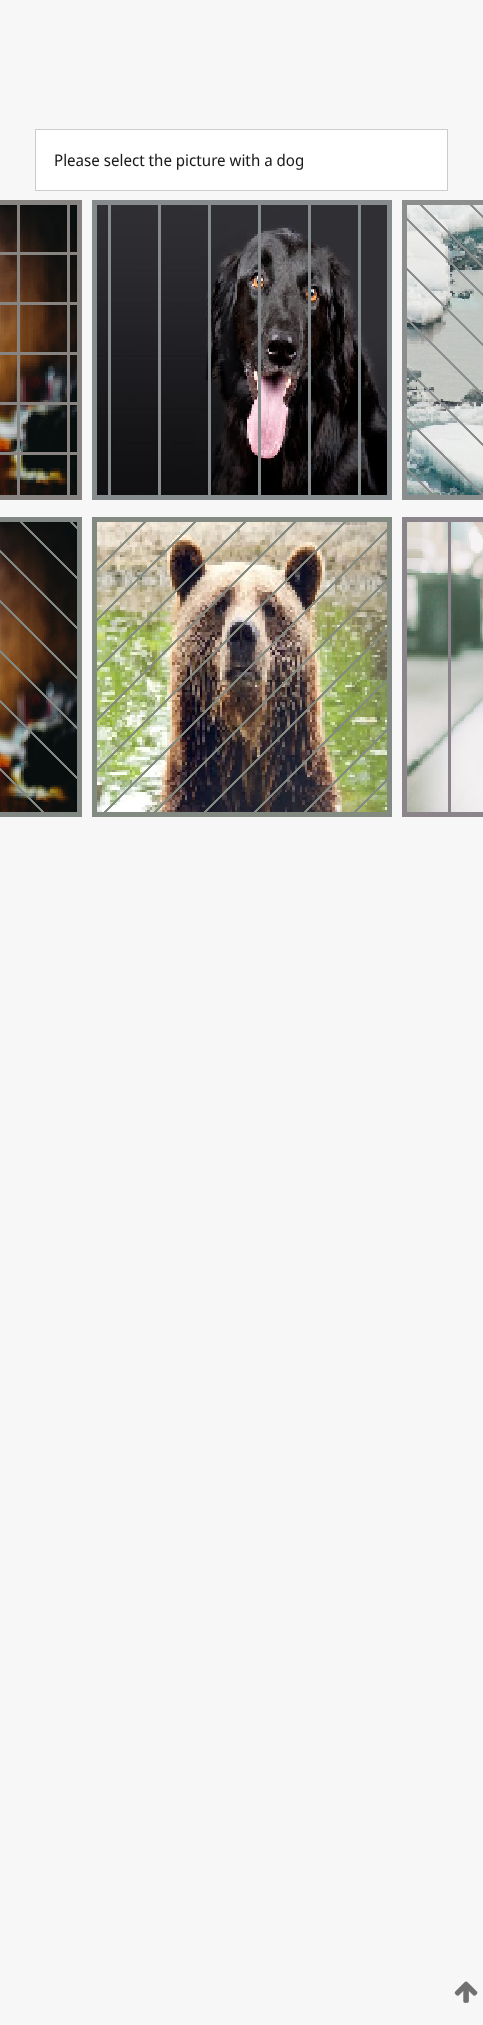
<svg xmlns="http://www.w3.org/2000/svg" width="483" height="2025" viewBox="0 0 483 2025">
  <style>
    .t1 { font: 16px Noto Sans Display; fill: #1a1a1a; }
  </style>
  <rect width="100%" height="100%" fill="#f7f7f7"/>
  <rect x="35.5" y="129.5" width="412" height="61" fill="#fff" stroke="#ccc"/>
  <text x="54" y="166" class="t1">Please select the picture with a dog</text>
  <image x="0" y="200" width="82" height="300" href="images/1.png"/>
  <image x="92" y="200" width="300" height="300" href="images/2.png"/>
  <image x="402" y="200" width="81" height="300" href="images/3.png"/>
  <image x="0" y="517" width="82" height="300" href="images/4.png"/>
  <image x="92" y="517" width="300" height="300" href="images/5.png"/>
  <image x="402" y="517" width="81" height="300" href="images/6.png"/>
  <image x="454" y="1981" width="24" height="22" href="images/7.png"/>
</svg>
